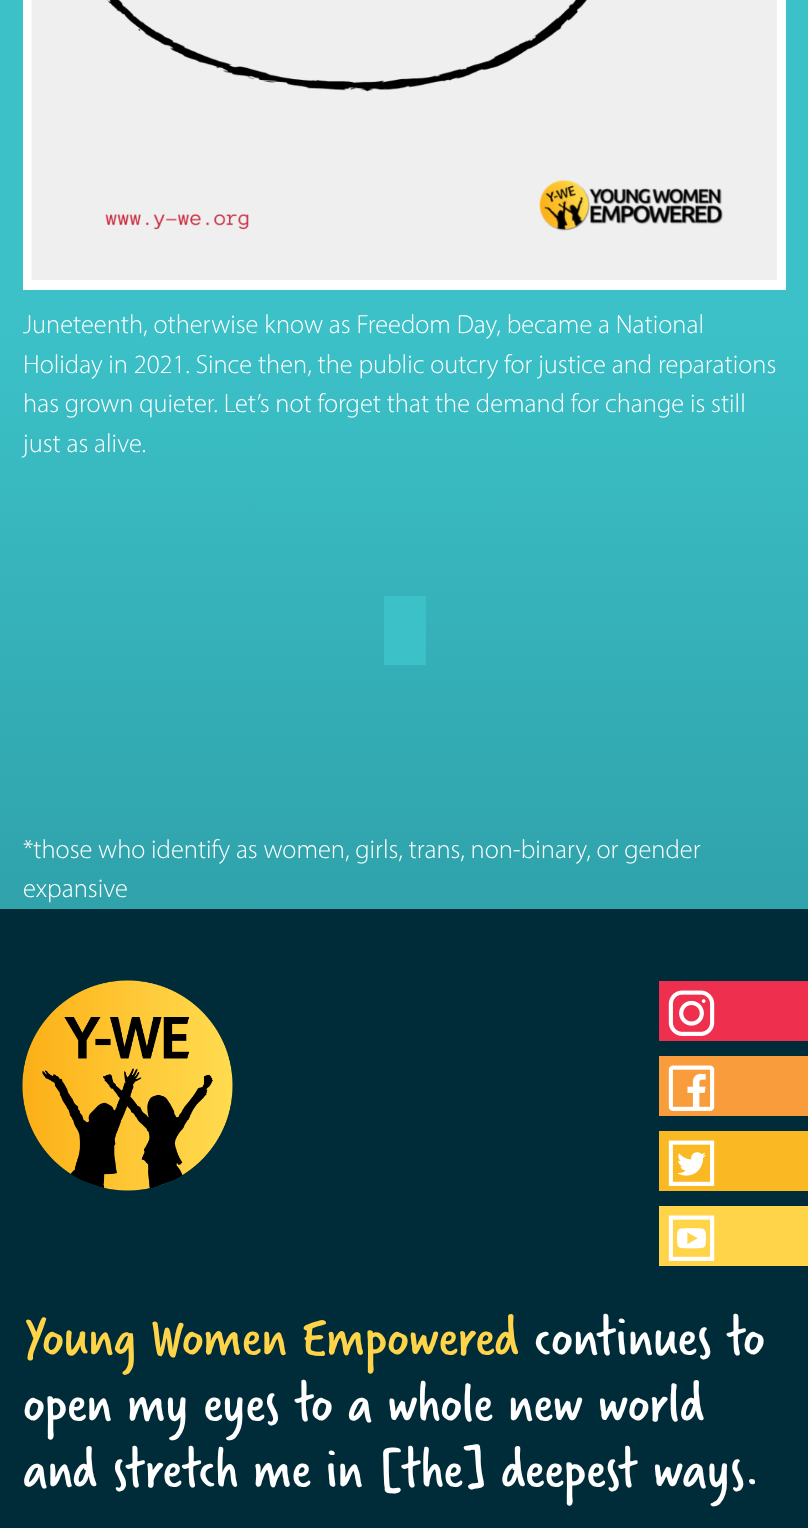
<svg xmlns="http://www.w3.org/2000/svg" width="808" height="1528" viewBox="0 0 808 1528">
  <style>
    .t1 { font: 300 26.4px Myriad; fill: #fff; }
    .t2 { font: 60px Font; fill: #ffd449; }
    .t3 { font: 60px Font; fill: #fff; }
  </style>
  <defs>
    <linearGradient id="g1" gradientUnits="userSpaceOnUse" x1="404" y1="-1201" x2="404" y2="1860"><stop offset="0.5" stop-color="#3cc1c8"/><stop offset="0.9" stop-color="#22808a"/><stop offset="1" stop-color="#002c3a"/></linearGradient>
  </defs>
  <rect width="100%" height="100%" fill="#fff"/>
  <rect x="0" y="0" width="808" height="909" fill="url(#g1)"/>
  <rect x="23" y="0" width="763" height="290" fill="#fff"/>
  <image x="31" y="0" width="746" height="280" href="images/1.png"/>
  <text x="23" y="333" class="t1">Juneteenth, otherwise know as Freedom Day, became a National</text>
  <text x="23" y="373" class="t1">Holiday in 2021. Since then, the public outcry for justice and reparations</text>
  <text x="23" y="412" class="t1">has grown quieter. Let’s not forget that the demand for change is still</text>
  <text x="23" y="452" class="t1">just as alive.</text>
  <rect x="384" y="596" width="42" height="69" fill="#3cc1c8"/>
  <text x="23" y="858" class="t1">*those who identify as women, girls, trans, non-binary, or gender</text>
  <text x="23" y="897" class="t1">expansive</text>
  <rect x="0" y="909" width="808" height="619" fill="#002c3a"/>
  <image x="22" y="980" width="211" height="211" href="images/2.png"/>
  <rect x="659" y="981" width="149" height="60" fill="#ee2f4e"/>
  <image x="668" y="990" width="47" height="46" href="images/3.png"/>
  <rect x="659" y="1056" width="149" height="60" fill="#f99d3c"/>
  <image x="668" y="1065" width="47" height="46" href="images/4.png"/>
  <rect x="659" y="1131" width="149" height="60" fill="#fab822"/>
  <image x="668" y="1140" width="47" height="46" href="images/5.png"/>
  <rect x="659" y="1206" width="149" height="60" fill="#ffd449"/>
  <image x="668" y="1215" width="47" height="46" href="images/6.png"/>
  <text x="23" y="1354" class="t2">Young Women Empowered</text>
  <text x="534" y="1354" class="t3">continues to</text>
  <text x="23" y="1420" class="t3">open my eyes to a whole new world</text>
  <text x="23" y="1486" class="t3">and stretch me in [the] deepest ways.</text>
</svg>
